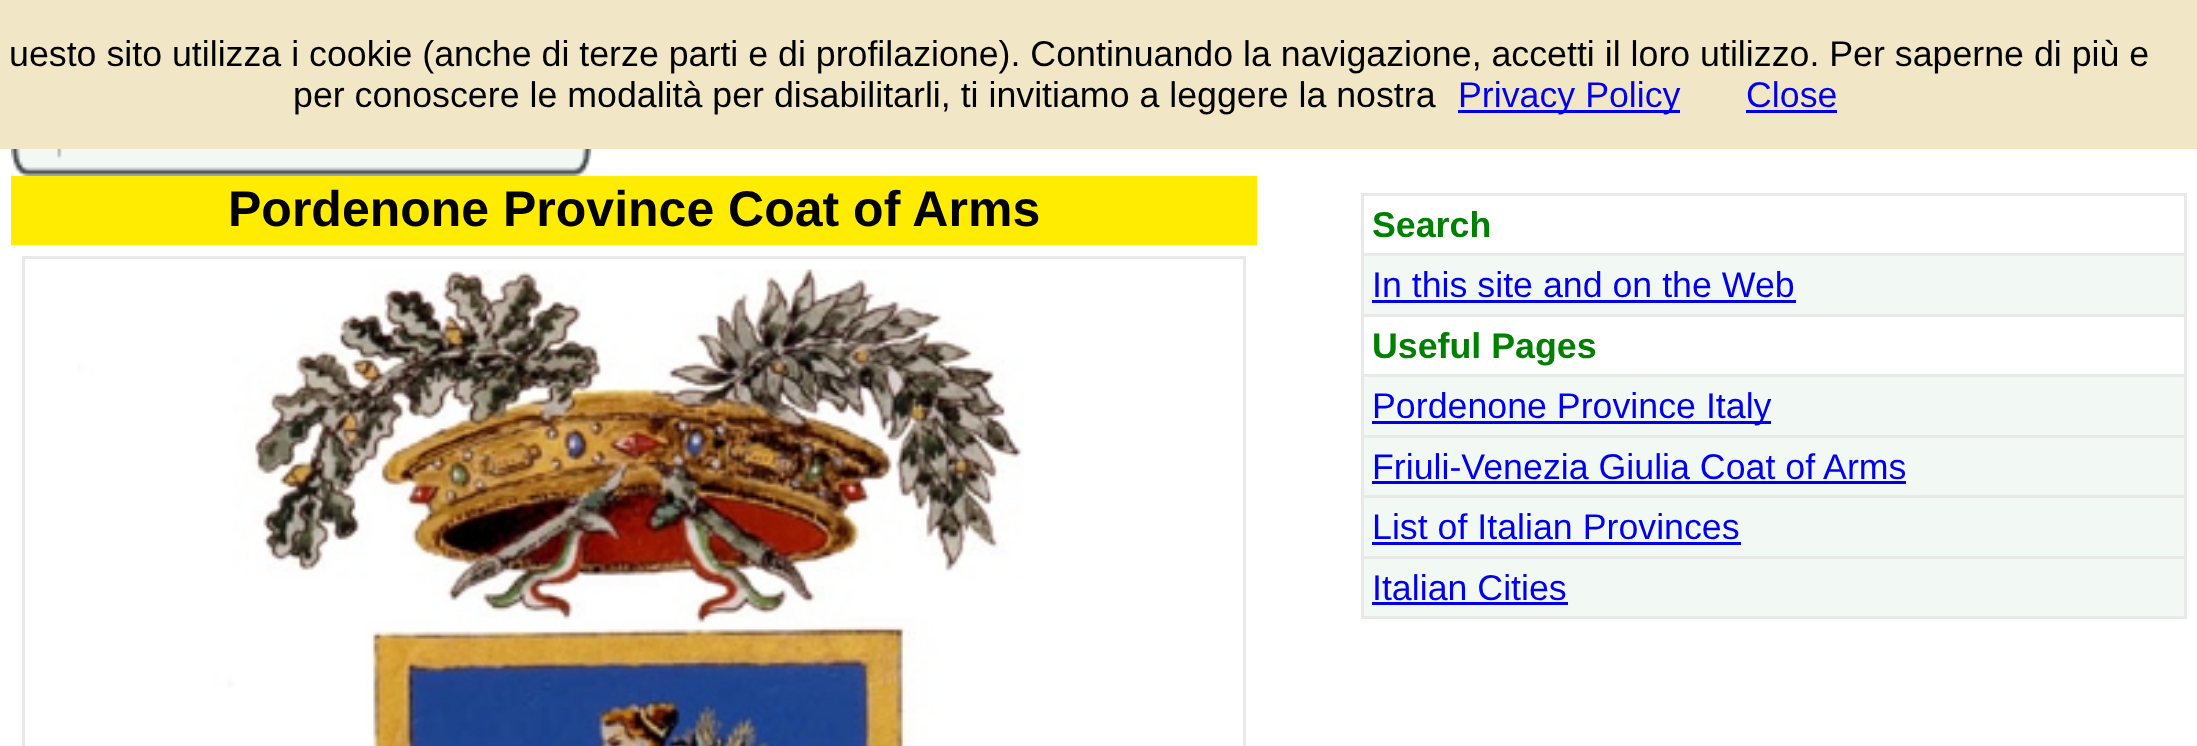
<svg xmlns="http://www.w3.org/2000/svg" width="2197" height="746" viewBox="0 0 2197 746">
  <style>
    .t1 { font: 35.75px Liberation Sans; fill: #000; }
    .t2 { font: 35.75px Liberation Sans; fill: #00e; }
    .t3 { font: bold 50px Liberation Sans; fill: #000; }
    .t4 { font: bold 35.75px Liberation Sans; fill: #008000; }
  </style>
  <rect width="100%" height="100%" fill="#fff"/>
  <rect x="0" y="0" width="2197" height="149" fill="#f1e6c6"/>
  <text x="9" y="66" class="t1">uesto sito utilizza i cookie (anche di terze parti e di profilazione). Continuando la navigazione, accetti il loro utilizzo. Per saperne di più e</text>
  <text x="293" y="107" class="t1">per conoscere le modalità per disabilitarli, ti invitiamo a leggere la nostra</text>
  <rect x="1458" y="110" width="222" height="3" fill="#00e"/>
  <text x="1458" y="107" class="t2">Privacy Policy</text>
  <text x="1746" y="107" class="t2">Close</text>
  <rect x="1746" y="110" width="91" height="3" fill="#00e"/>
  <image x="11" y="149" width="581" height="27" href="images/1.png"/>
  <rect x="11" y="176" width="1246" height="69" fill="#ffec00"/>
  <text x="228" y="226" class="t3">Pordenone Province Coat of Arms</text>
  <rect x="22" y="256" width="1224" height="3" fill="#e9e9e9"/>
  <rect x="1243" y="256" width="3" height="490" fill="#e9e9e9"/>
  <rect x="22" y="256" width="3" height="490" fill="#e9e9e9"/>
  <image x="77" y="269" width="947" height="477" href="images/2.png"/>
  <rect x="1364" y="256" width="820" height="360" fill="#f2f8f4"/>
  <rect x="1361" y="193" width="825" height="3" fill="#e9e9e9"/>
  <rect x="2184" y="193" width="3" height="426" fill="#e9e9e9"/>
  <rect x="1361" y="616" width="825" height="3" fill="#e9e9e9"/>
  <rect x="1361" y="193" width="3" height="426" fill="#e9e9e9"/>
  <text x="1372" y="237" class="t4">Search</text>
  <rect x="1361" y="253" width="825" height="3" fill="#e9e9e9"/>
  <text x="1372" y="297" class="t2">In this site and on the Web</text>
  <rect x="1372" y="300" width="424" height="3" fill="#00e"/>
  <rect x="1364" y="317" width="820" height="57" fill="#fff"/>
  <rect x="1361" y="314" width="825" height="3" fill="#e9e9e9"/>
  <text x="1372" y="358" class="t4">Useful Pages</text>
  <rect x="1361" y="374" width="825" height="3" fill="#e9e9e9"/>
  <rect x="1372" y="421" width="399" height="3" fill="#00e"/>
  <text x="1372" y="418" class="t2">Pordenone Province Italy</text>
  <rect x="1361" y="435" width="825" height="3" fill="#e9e9e9"/>
  <text x="1372" y="479" class="t2">Friuli-Venezia Giulia Coat of Arms</text>
  <rect x="1372" y="481" width="534" height="3" fill="#00e"/>
  <rect x="1361" y="495" width="825" height="3" fill="#e9e9e9"/>
  <text x="1372" y="539" class="t2">List of Italian Provinces</text>
  <rect x="1372" y="542" width="369" height="3" fill="#00e"/>
  <rect x="1361" y="556" width="825" height="3" fill="#e9e9e9"/>
  <text x="1372" y="600" class="t2">Italian Cities</text>
  <rect x="1372" y="602" width="196" height="3" fill="#00e"/>
</svg>
